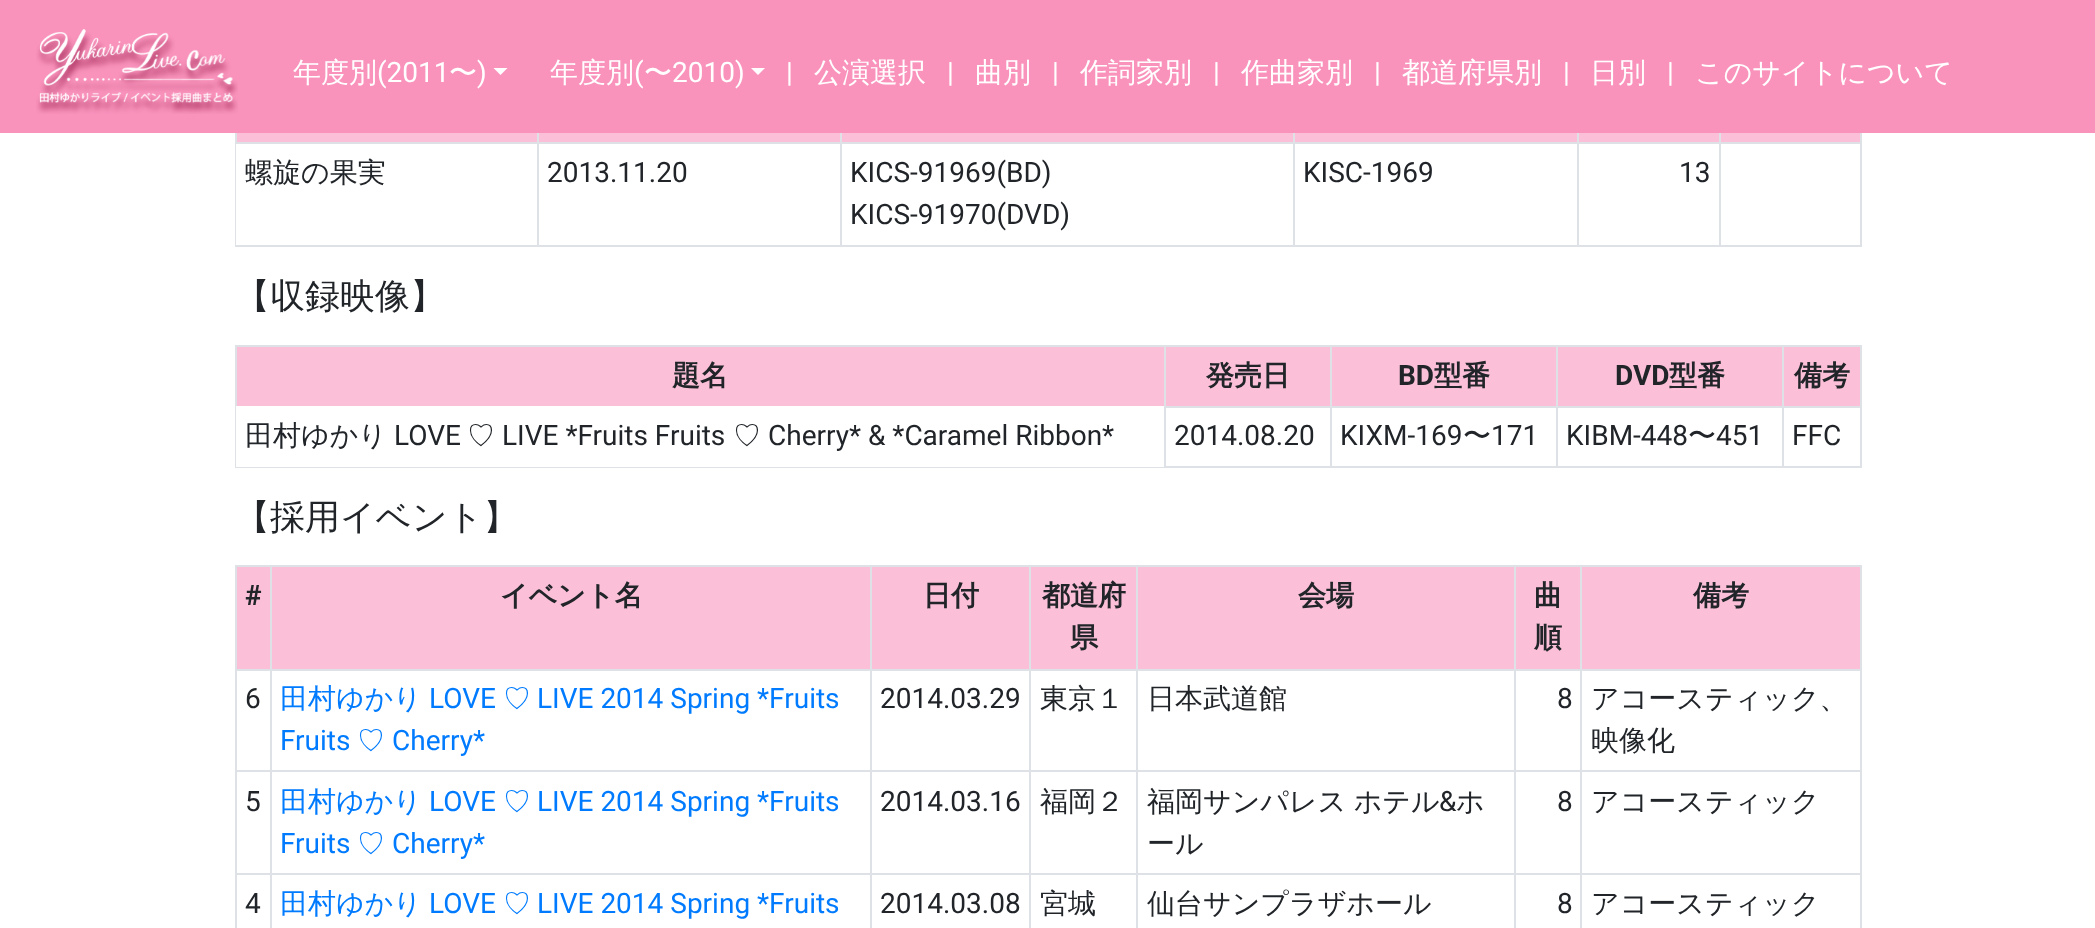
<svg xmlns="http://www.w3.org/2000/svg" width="2095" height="928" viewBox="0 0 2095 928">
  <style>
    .t1 { font: 500 28px WenQuanYi Zen Hei; fill: #fff; }
    .t2 { font: 28px Roboto; fill: #fff; }
    .t3 { font: 500 28px WenQuanYi Zen Hei; fill: #212529; }
    .t4 { font: 28px Roboto; fill: #212529; }
    .t5 { font: 500 35px WenQuanYi Zen Hei; fill: #212529; }
    .t6 { font: bold 28px WenQuanYi Zen Hei; fill: #212529; }
    .t7 { font: bold 28px Roboto; fill: #212529; }
    .t8 { font: 500 28px WenQuanYi Zen Hei; fill: #007bff; }
    .t9 { font: 28px Roboto; fill: #007bff; }
  </style>
  <rect width="100%" height="100%" fill="#fff"/>
  <rect x="0" y="0" width="2095" height="133" fill="#f993bc"/>
  <image x="36" y="29" width="202" height="85" href="images/1.png"/>
  <text x="293" y="82" class="t1">年度別</text>
  <text x="377" y="82" class="t2">(2011</text>
  <text x="449" y="82" class="t1">〜</text>
  <text x="477" y="82" class="t2">)</text>
  <path d="M493.5 68H507.5L500.5 75Z" fill="#fff"/>
  <text x="550" y="82" class="t1">年度別</text>
  <text x="634" y="82" class="t2">(</text>
  <text x="644" y="82" class="t1">〜</text>
  <text x="672" y="82" class="t2">2010)</text>
  <path d="M751 68H765L758 75Z" fill="#fff"/>
  <text x="786" y="82" class="t2">|</text>
  <text x="814" y="82" class="t1">公演選択</text>
  <text x="947" y="82" class="t2">|</text>
  <text x="975" y="82" class="t1">曲別</text>
  <text x="1052" y="82" class="t2">|</text>
  <text x="1080" y="82" class="t1">作詞家別</text>
  <text x="1213" y="82" class="t2">|</text>
  <text x="1241" y="82" class="t1">作曲家別</text>
  <text x="1374" y="82" class="t2">|</text>
  <text x="1402" y="82" class="t1">都道府県別</text>
  <text x="1563" y="82" class="t2">|</text>
  <text x="1590" y="82" class="t1">日別</text>
  <text x="1667" y="82" class="t2">|</text>
  <text x="1695" y="82" class="t1">このサイトについて</text>
  <rect x="1860" y="133" width="2" height="114" fill="#dee2e6"/>
  <rect x="235" y="245" width="1627" height="2" fill="#dee2e6"/>
  <rect x="235" y="133" width="2" height="114" fill="#dee2e6"/>
  <rect x="237" y="133" width="1623" height="9" fill="#fbc0d8"/>
  <rect x="1719" y="142" width="143" height="2" fill="#dee2e6"/>
  <rect x="1719" y="142" width="2" height="105" fill="#dee2e6"/>
  <rect x="1577" y="142" width="143" height="2" fill="#dee2e6"/>
  <rect x="1577" y="142" width="2" height="105" fill="#dee2e6"/>
  <rect x="1293" y="142" width="286" height="2" fill="#dee2e6"/>
  <rect x="1293" y="142" width="2" height="105" fill="#dee2e6"/>
  <rect x="840" y="142" width="455" height="2" fill="#dee2e6"/>
  <rect x="840" y="142" width="2" height="105" fill="#dee2e6"/>
  <rect x="537" y="142" width="305" height="2" fill="#dee2e6"/>
  <rect x="537" y="142" width="2" height="105" fill="#dee2e6"/>
  <rect x="235" y="142" width="304" height="2" fill="#dee2e6"/>
  <rect x="537" y="133" width="2" height="11" fill="#dee2e6"/>
  <rect x="840" y="133" width="2" height="11" fill="#dee2e6"/>
  <rect x="1293" y="133" width="2" height="11" fill="#dee2e6"/>
  <rect x="1577" y="133" width="2" height="11" fill="#dee2e6"/>
  <rect x="1719" y="133" width="2" height="11" fill="#dee2e6"/>
  <rect x="236" y="144" width="1" height="101" fill="#fff"/>
  <text x="245" y="182" class="t3">螺旋の果実</text>
  <text x="547" y="182" class="t4">2013.11.20</text>
  <text x="850" y="182" class="t4">KICS-91969(BD)</text>
  <text x="850" y="224" class="t4">KICS-91970(DVD)</text>
  <text x="1303" y="182" class="t4">KISC-1969</text>
  <text x="1679" y="182" class="t4">13</text>
  <text x="235" y="308" class="t5">【収録映像】</text>
  <rect x="235" y="345" width="1627" height="2" fill="#dee2e6"/>
  <rect x="1860" y="345" width="2" height="122" fill="#dee2e6"/>
  <rect x="235" y="466" width="1627" height="2" fill="#dee2e6"/>
  <rect x="235" y="345" width="2" height="122" fill="#dee2e6"/>
  <rect x="237" y="347" width="1623" height="59" fill="#fbc0d8"/>
  <text x="672" y="385" class="t6">題名</text>
  <text x="1206" y="385" class="t6">発売日</text>
  <rect x="1782" y="406" width="80" height="2" fill="#dee2e6"/>
  <rect x="1782" y="406" width="2" height="61" fill="#dee2e6"/>
  <rect x="1556" y="406" width="227" height="2" fill="#dee2e6"/>
  <rect x="1556" y="406" width="2" height="61" fill="#dee2e6"/>
  <rect x="1330" y="406" width="228" height="2" fill="#dee2e6"/>
  <rect x="1330" y="406" width="2" height="61" fill="#dee2e6"/>
  <rect x="1164" y="406" width="168" height="2" fill="#dee2e6"/>
  <rect x="1330" y="345" width="2" height="63" fill="#dee2e6"/>
  <text x="1398" y="385" class="t7">BD</text>
  <text x="1434" y="385" class="t6">型番</text>
  <rect x="1556" y="345" width="2" height="63" fill="#dee2e6"/>
  <text x="1615" y="385" class="t7">DVD</text>
  <text x="1669" y="385" class="t6">型番</text>
  <rect x="1782" y="345" width="2" height="63" fill="#dee2e6"/>
  <text x="1794" y="385" class="t6">備考</text>
  <rect x="236" y="406" width="928" height="61" fill="#fff"/>
  <text x="245" y="445" class="t3">田村ゆかり</text>
  <text x="394" y="445" class="t4">LOVE</text>
  <text x="467" y="445" class="t3">♡</text>
  <text x="502" y="445" class="t4">LIVE *Fruits Fruits</text>
  <text x="733" y="445" class="t3">♡</text>
  <text x="768" y="445" class="t4">Cherry* &amp; *Caramel Ribbon*</text>
  <rect x="1164" y="345" width="2" height="122" fill="#dee2e6"/>
  <text x="1174" y="445" class="t4">2014.08.20</text>
  <text x="1340" y="445" class="t4">KIXM-169</text>
  <text x="1463" y="445" class="t3">〜</text>
  <text x="1491" y="445" class="t4">171</text>
  <text x="1566" y="445" class="t4">KIBM-448</text>
  <text x="1688" y="445" class="t3">〜</text>
  <text x="1716" y="445" class="t4">451</text>
  <text x="1792" y="445" class="t4">FFC</text>
  <text x="235" y="529" class="t5">【採用イベント】</text>
  <rect x="235" y="565" width="1627" height="2" fill="#dee2e6"/>
  <rect x="1860" y="565" width="2" height="363" fill="#dee2e6"/>
  <rect x="235" y="565" width="2" height="363" fill="#dee2e6"/>
  <rect x="237" y="567" width="1623" height="102" fill="#fbc0d8"/>
  <text x="245" y="605" class="t7">#</text>
  <rect x="1580" y="669" width="282" height="2" fill="#dee2e6"/>
  <rect x="1580" y="770" width="282" height="2" fill="#dee2e6"/>
  <rect x="1580" y="873" width="282" height="2" fill="#dee2e6"/>
  <rect x="1580" y="873" width="2" height="55" fill="#dee2e6"/>
  <rect x="1514" y="873" width="68" height="2" fill="#dee2e6"/>
  <rect x="1580" y="770" width="2" height="105" fill="#dee2e6"/>
  <rect x="1514" y="770" width="68" height="2" fill="#dee2e6"/>
  <rect x="1580" y="669" width="2" height="103" fill="#dee2e6"/>
  <rect x="1514" y="669" width="68" height="2" fill="#dee2e6"/>
  <rect x="1514" y="873" width="2" height="55" fill="#dee2e6"/>
  <rect x="1136" y="873" width="380" height="2" fill="#dee2e6"/>
  <rect x="1514" y="770" width="2" height="105" fill="#dee2e6"/>
  <rect x="1136" y="770" width="380" height="2" fill="#dee2e6"/>
  <rect x="1514" y="669" width="2" height="103" fill="#dee2e6"/>
  <rect x="1136" y="669" width="380" height="2" fill="#dee2e6"/>
  <rect x="1136" y="873" width="2" height="55" fill="#dee2e6"/>
  <rect x="1029" y="873" width="109" height="2" fill="#dee2e6"/>
  <rect x="1136" y="770" width="2" height="105" fill="#dee2e6"/>
  <rect x="1029" y="770" width="109" height="2" fill="#dee2e6"/>
  <rect x="1136" y="669" width="2" height="103" fill="#dee2e6"/>
  <rect x="1029" y="669" width="109" height="2" fill="#dee2e6"/>
  <rect x="1029" y="873" width="2" height="55" fill="#dee2e6"/>
  <rect x="870" y="873" width="161" height="2" fill="#dee2e6"/>
  <rect x="1029" y="770" width="2" height="105" fill="#dee2e6"/>
  <rect x="870" y="770" width="161" height="2" fill="#dee2e6"/>
  <rect x="1029" y="669" width="2" height="103" fill="#dee2e6"/>
  <rect x="870" y="669" width="161" height="2" fill="#dee2e6"/>
  <rect x="870" y="873" width="2" height="55" fill="#dee2e6"/>
  <rect x="270" y="873" width="602" height="2" fill="#dee2e6"/>
  <rect x="870" y="770" width="2" height="105" fill="#dee2e6"/>
  <rect x="270" y="770" width="602" height="2" fill="#dee2e6"/>
  <rect x="870" y="669" width="2" height="103" fill="#dee2e6"/>
  <rect x="270" y="669" width="602" height="2" fill="#dee2e6"/>
  <rect x="270" y="873" width="2" height="55" fill="#dee2e6"/>
  <rect x="235" y="873" width="36" height="2" fill="#dee2e6"/>
  <rect x="270" y="770" width="2" height="105" fill="#dee2e6"/>
  <rect x="235" y="770" width="36" height="2" fill="#dee2e6"/>
  <rect x="270" y="669" width="2" height="103" fill="#dee2e6"/>
  <rect x="235" y="669" width="36" height="2" fill="#dee2e6"/>
  <rect x="270" y="565" width="2" height="105" fill="#dee2e6"/>
  <text x="500" y="605" class="t6">イベント名</text>
  <rect x="870" y="565" width="2" height="105" fill="#dee2e6"/>
  <text x="923" y="605" class="t6">日付</text>
  <rect x="1029" y="565" width="2" height="105" fill="#dee2e6"/>
  <text x="1042" y="605" class="t6">都道府</text>
  <text x="1070" y="647" class="t6">県</text>
  <rect x="1136" y="565" width="2" height="105" fill="#dee2e6"/>
  <text x="1298" y="605" class="t6">会場</text>
  <rect x="1514" y="565" width="2" height="105" fill="#dee2e6"/>
  <text x="1534" y="605" class="t6">曲</text>
  <text x="1534" y="647" class="t6">順</text>
  <rect x="1580" y="565" width="2" height="105" fill="#dee2e6"/>
  <text x="1693" y="605" class="t6">備考</text>
  <text x="245" y="708" class="t4">6</text>
  <text x="280" y="708" class="t8">田村ゆかり</text>
  <text x="429" y="708" class="t9">LOVE</text>
  <text x="503" y="708" class="t8">♡</text>
  <text x="537" y="708" class="t9">LIVE 2014 Spring *Fruits</text>
  <text x="280" y="750" class="t9">Fruits</text>
  <text x="357" y="750" class="t8">♡</text>
  <text x="392" y="750" class="t9">Cherry*</text>
  <text x="880" y="708" class="t4">2014.03.29</text>
  <text x="1040" y="708" class="t3">東京１</text>
  <text x="1147" y="708" class="t3">日本武道館</text>
  <text x="1557" y="708" class="t4">8</text>
  <text x="1591" y="708" class="t3">アコースティック、</text>
  <text x="1591" y="750" class="t3">映像化</text>
  <text x="245" y="811" class="t4">5</text>
  <text x="280" y="811" class="t8">田村ゆかり</text>
  <text x="429" y="811" class="t9">LOVE</text>
  <text x="503" y="811" class="t8">♡</text>
  <text x="537" y="811" class="t9">LIVE 2014 Spring *Fruits</text>
  <text x="280" y="853" class="t9">Fruits</text>
  <text x="357" y="853" class="t8">♡</text>
  <text x="392" y="853" class="t9">Cherry*</text>
  <text x="880" y="811" class="t4">2014.03.16</text>
  <text x="1040" y="811" class="t3">福岡２</text>
  <text x="1147" y="811" word-spacing="-1" class="t3">福岡サンパレス ホテル</text>
  <text x="1439" y="811" class="t4">&amp;</text>
  <text x="1456" y="811" class="t3">ホ</text>
  <text x="1147" y="853" class="t3">ール</text>
  <text x="1557" y="811" class="t4">8</text>
  <text x="1591" y="811" class="t3">アコースティック</text>
  <text x="245" y="913" class="t4">4</text>
  <text x="280" y="913" class="t8">田村ゆかり</text>
  <text x="429" y="913" class="t9">LOVE</text>
  <text x="503" y="913" class="t8">♡</text>
  <text x="537" y="913" class="t9">LIVE 2014 Spring *Fruits</text>
  <text x="880" y="913" class="t4">2014.03.08</text>
  <text x="1040" y="913" class="t3">宮城</text>
  <text x="1147" y="913" class="t3">仙台サンプラザホール</text>
  <text x="1557" y="913" class="t4">8</text>
  <text x="1591" y="913" class="t3">アコースティック</text>
</svg>
